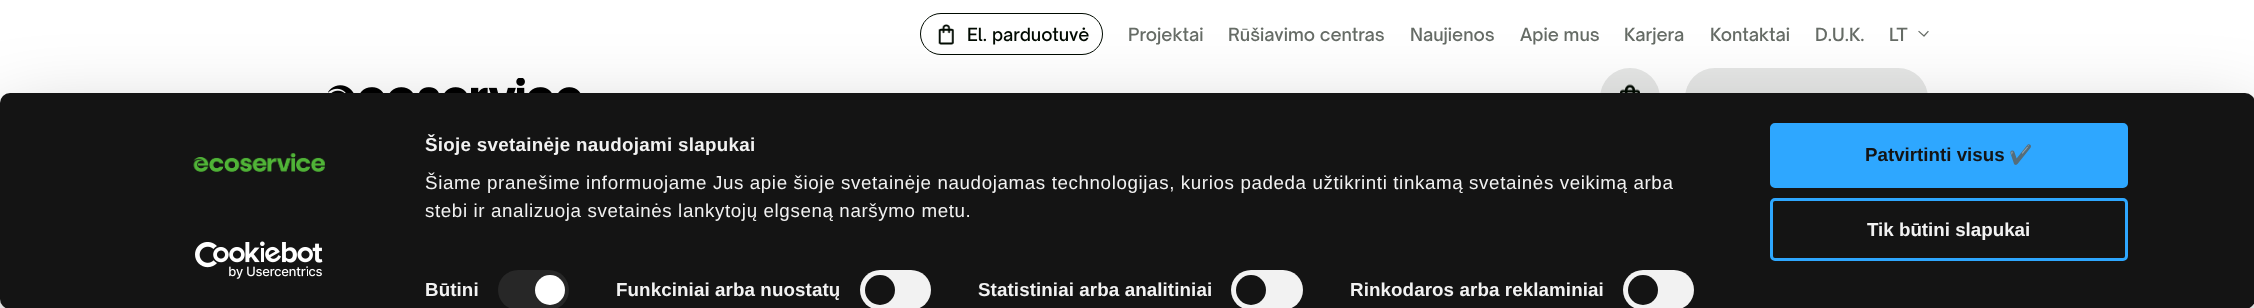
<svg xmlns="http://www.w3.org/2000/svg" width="2254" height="308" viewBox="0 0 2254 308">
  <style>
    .t1 { font: 500 17.5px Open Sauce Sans; fill: #000a00; }
    .t2 { font: 500 17.5px Open Sauce Sans; fill: #666c66; }
    .t3 { font: bold 18.75px Liberation Sans; letter-spacing: 0.3px; fill: #f2f2f2; }
    .t4 { font: 18.75px Liberation Sans; letter-spacing: 0.62px; fill: #f2f2f2; }
    .t5 { font: bold 18.75px Liberation Sans; letter-spacing: 0.1px; fill: #f2f2f2; }
    .t6 { font: bold 18.75px Liberation Sans; fill: #141414; }
    .t7 { font: bold 18.75px Noto Color Emoji; fill: #141414; }
    .t8 { font: bold 18.75px Liberation Sans; fill: #f2f2f2; }
  </style>
  <rect width="100%" height="100%" fill="#fff"/>
  <rect x="920.5" y="13.5" width="182" height="41" rx="20.5" fill="none" stroke="#000a00"/>
  <image x="938" y="24" width="16" height="21" href="images/1.png"/>
  <text x="967" y="41" class="t1">El. parduotuvė</text>
  <text x="1128" y="41" class="t2">Projektai</text>
  <text x="1228" y="41" class="t2">Rūšiavimo centras</text>
  <text x="1410" y="41" class="t2">Naujienos</text>
  <text x="1520" y="41" class="t2">Apie mus</text>
  <text x="1624" y="41" class="t2">Karjera</text>
  <text x="1710" y="41" class="t2">Kontaktai</text>
  <text x="1815" y="41" class="t2">D.U.K.</text>
  <text x="1889" y="41" class="t2">LT</text>
  <path d="M1928 31.5L1924 36L1919 31.5" fill="none" stroke="#666c66" stroke-width="1.2" stroke-linecap="square" stroke-linejoin="round"/>
  <image x="328" y="78" width="253" height="15" href="images/2.png"/>
  <circle cx="1630" cy="98" r="30" fill="#e6e7e6"/>
  <image x="1620" y="84" width="20" height="9" href="images/3.png"/>
  <rect x="1685" y="68" width="243" height="60" rx="30" fill="#e6e7e6"/>
  <rect x="0" y="130" width="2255" height="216" rx="10" fill="#0000004d" filter="blur(44px)"/>
  <rect x="0" y="93" width="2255" height="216" rx="10" fill="#141414"/>
  <image x="193" y="153" width="132" height="19" href="images/4.png"/>
  <image x="195" y="241" width="128" height="38" href="images/5.png"/>
  <text x="425" y="151" class="t3">Šioje svetainėje naudojami slapukai</text>
  <text x="425" y="189" class="t4">Šiame pranešime informuojame Jus apie šioje svetainėje naudojamas technologijas, kurios padeda užtikrinti tinkamą svetainės veikimą arba</text>
  <text x="425" y="217" class="t4">stebi ir analizuoja svetainės lankytojų elgseną naršymo metu.</text>
  <text x="425" y="296" class="t5">Būtini</text>
  <rect x="498" y="270" width="71" height="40" rx="20" fill="#272727"/>
  <circle cx="550" cy="290" r="15" fill="#fff"/>
  <text x="616" y="296" class="t5">Funkciniai arba nuostatų</text>
  <rect x="860" y="270" width="71" height="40" rx="20" fill="#f2f2f2"/>
  <circle cx="880" cy="290" r="15" fill="#141414"/>
  <text x="978" y="296" class="t5">Statistiniai arba analitiniai</text>
  <rect x="1231" y="270" width="72" height="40" rx="20" fill="#f2f2f2"/>
  <circle cx="1251" cy="290" r="15" fill="#141414"/>
  <text x="1350" y="296" class="t5">Rinkodaros arba reklaminiai</text>
  <rect x="1623" y="270" width="71" height="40" rx="20" fill="#f2f2f2"/>
  <circle cx="1643" cy="290" r="15" fill="#141414"/>
  <rect x="1771.5" y="124.5" width="355" height="62" rx="3.5" fill="#2ea7ff" stroke="#2ea7ff" stroke-width="3"/>
  <text x="1865" y="161" class="t6">Patvirtinti visus</text>
  <text x="2009" y="161" class="t7">✔️</text>
  <rect x="1771.5" y="199.5" width="355" height="60" rx="3.5" fill="none" stroke="#2ea7ff" stroke-width="3"/>
  <text x="1867" y="236" class="t8">Tik būtini slapukai</text>
</svg>
